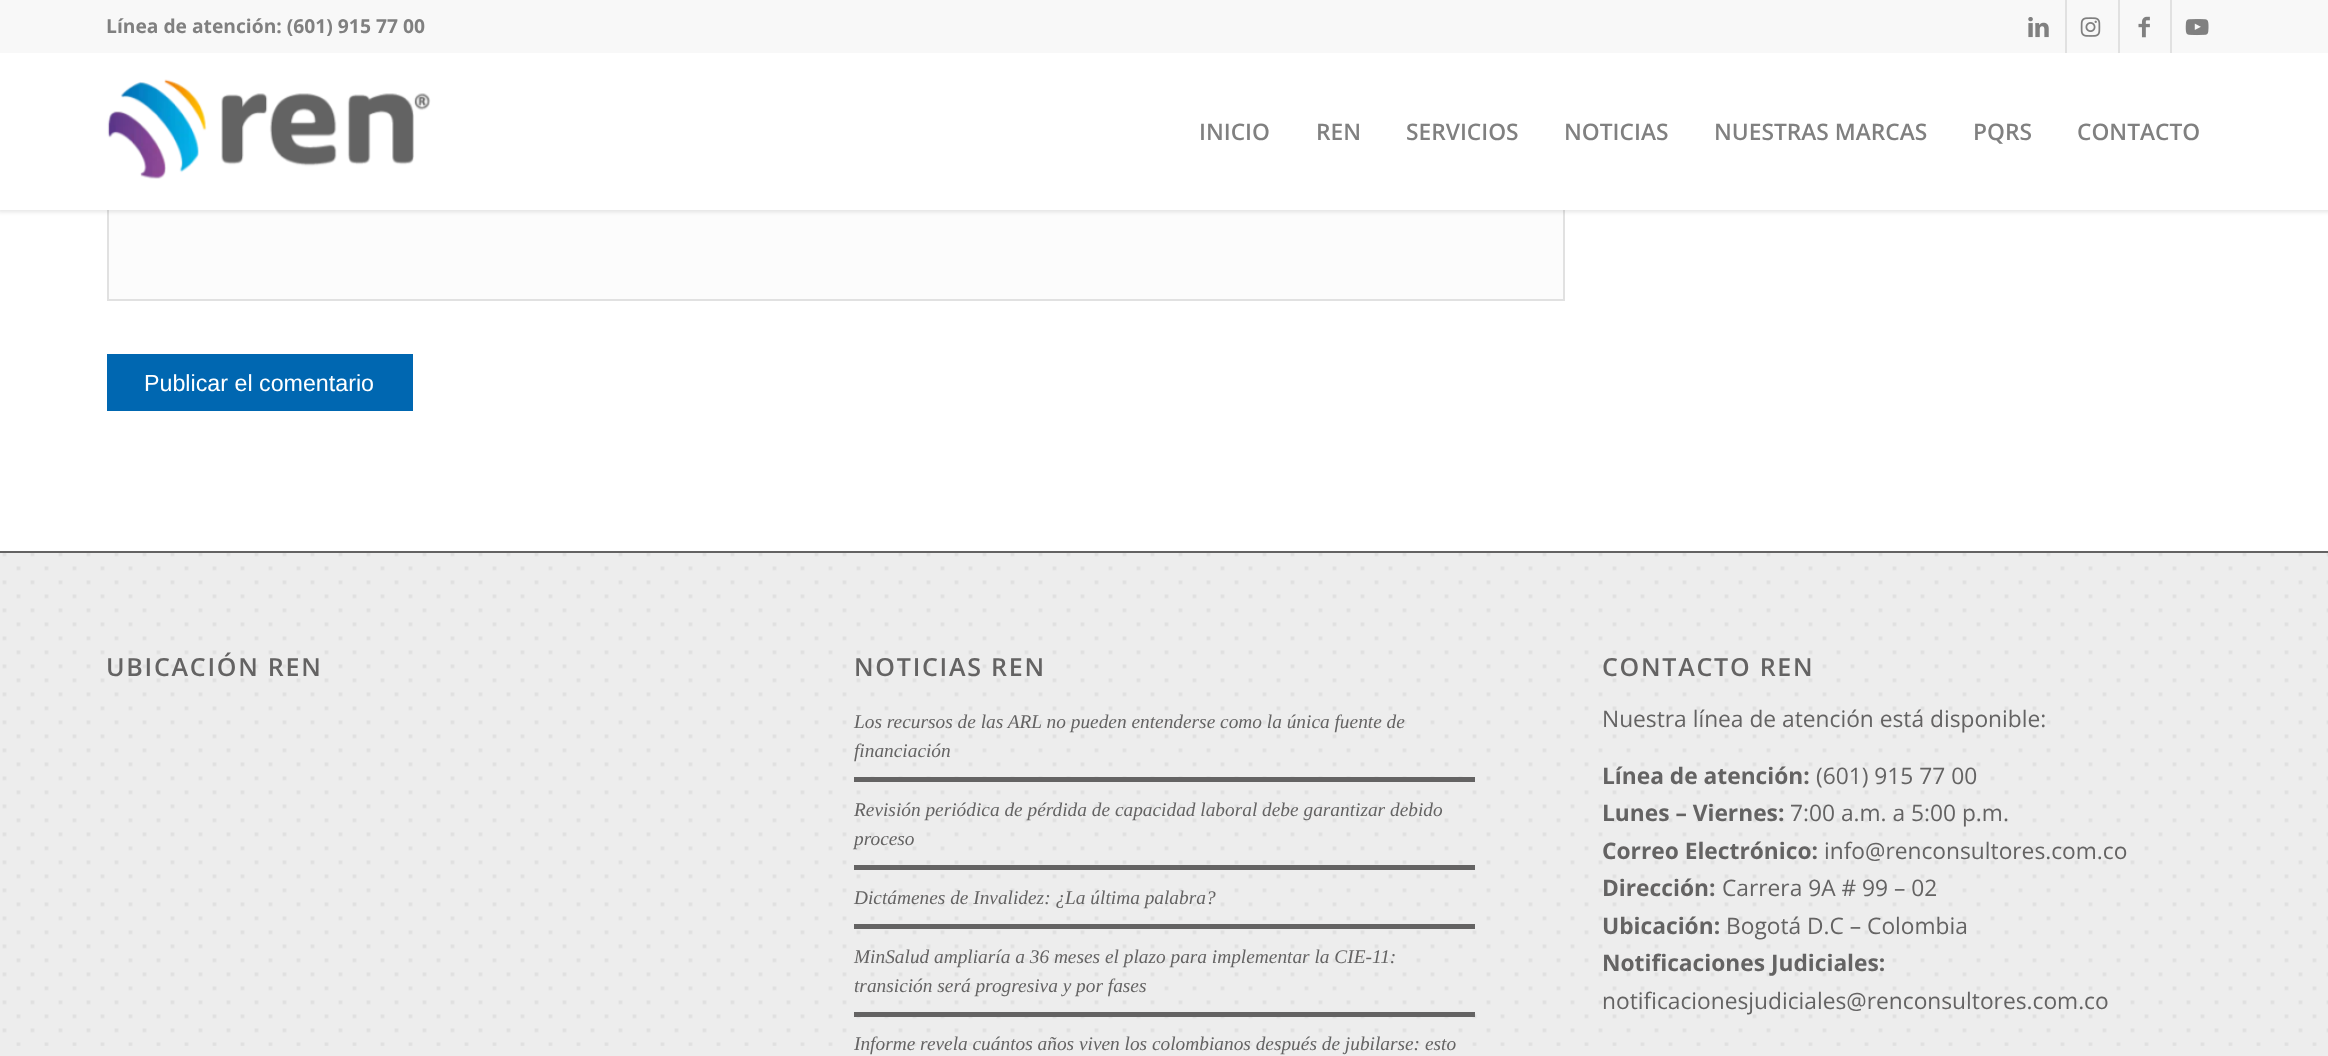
<svg xmlns="http://www.w3.org/2000/svg" width="2328" height="1056" viewBox="0 0 2328 1056">
  <style>
    .t1 { font: bold 19.25px Open Sans; fill: #808080; }
    .t2 { font: 600 22.75px Open Sans; fill: #808080; }
    .t3 { font: 23.25px Liberation Sans; fill: #fff; }
    .t4 { font: 600 25px Open Sans; letter-spacing: 1.75px; fill: #646363; }
    .t5 { font: italic 19.35px Liberation Serif; fill: #646363; }
    .t6 { font: 22.75px Open Sans; fill: #646363; }
    .t7 { font: bold 22.75px Open Sans; fill: #646363; }
  </style>
  <rect width="100%" height="100%" fill="#fff"/>
  <rect x="109" y="210" width="1454" height="89" fill="#fcfcfc"/>
  <rect x="108" y="-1" width="1456" height="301" fill="none" stroke="#e1e1e1" stroke-width="2"/>
  <rect x="-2" y="-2" width="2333" height="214" fill="#0000001a" filter="blur(2px)"/>
  <rect x="0" y="0" width="2328" height="53" fill="#f8f8f8"/>
  <text x="106" y="33" class="t1">Línea de atención: (601) 915 77 00</text>
  <rect x="2065" y="0" width="2" height="53" fill="#e1e1e1"/>
  <image x="2028" y="17" width="21" height="21" href="images/1.png"/>
  <rect x="2118" y="0" width="2" height="53" fill="#e1e1e1"/>
  <image x="2080" y="17" width="21" height="20" href="images/2.png"/>
  <rect x="2170" y="0" width="2" height="53" fill="#e1e1e1"/>
  <image x="2138" y="16" width="12" height="22" href="images/3.png"/>
  <image x="2185" y="19" width="24" height="17" href="images/4.png"/>
  <rect x="0" y="53" width="2328" height="157" fill="#fff"/>
  <image x="107" y="79" width="324" height="100" href="images/5.png"/>
  <text x="1199" y="140" class="t2">INICIO</text>
  <text x="1316" y="140" class="t2">REN</text>
  <text x="1406" y="140" class="t2">SERVICIOS</text>
  <text x="1564" y="140" class="t2">NOTICIAS</text>
  <text x="1714" y="140" class="t2">NUESTRAS MARCAS</text>
  <text x="1973" y="140" class="t2">PQRS</text>
  <text x="2077" y="140" class="t2">CONTACTO</text>
  <rect x="107" y="354" width="306" height="57" fill="#0067b1"/>
  <text x="144" y="391" class="t3">Publicar el comentario</text>
  <rect x="0" y="553" width="2328" height="503" fill="#ededed"/>
  <image x="2" y="553" width="2326" height="493" href="images/6.png"/>
  <rect x="0" y="551" width="2328" height="2" fill="#646363"/>
  <text x="106" y="676" class="t4">UBICACIÓN REN</text>
  <text x="854" y="676" class="t4">NOTICIAS REN</text>
  <text x="854" y="728" class="t5">Los recursos de las ARL no pueden entenderse como la única fuente de</text>
  <text x="854" y="757" class="t5">financiación</text>
  <rect x="854" y="777" width="621" height="5" fill="#646363"/>
  <text x="854" y="816" class="t5">Revisión periódica de pérdida de capacidad laboral debe garantizar debido</text>
  <text x="854" y="845" class="t5">proceso</text>
  <rect x="854" y="865" width="621" height="5" fill="#646363"/>
  <text x="854" y="904" class="t5">Dictámenes de Invalidez: ¿La última palabra?</text>
  <rect x="854" y="924" width="621" height="5" fill="#646363"/>
  <text x="854" y="963" class="t5">MinSalud ampliaría a 36 meses el plazo para implementar la CIE-11:</text>
  <text x="854" y="992" class="t5">transición será progresiva y por fases</text>
  <rect x="854" y="1012" width="621" height="5" fill="#646363"/>
  <text x="854" y="1050" class="t5">Informe revela cuántos años viven los colombianos después de jubilarse: esto</text>
  <text x="1602" y="676" class="t4">CONTACTO REN</text>
  <text x="1602" y="727" class="t6">Nuestra línea de atención está disponible:</text>
  <text x="1602" y="784" class="t7">Línea de atención:</text>
  <text x="1816" y="784" class="t6">(601) 915 77 00</text>
  <text x="1602" y="821" class="t7">Lunes – Viernes:</text>
  <text x="1790" y="821" class="t6">7:00 a.m. a 5:00 p.m.</text>
  <text x="1602" y="859" class="t7">Correo Electrónico:</text>
  <text x="1824" y="859" class="t6">info@renconsultores.com.co</text>
  <text x="1602" y="896" class="t7">Dirección:</text>
  <text x="1722" y="896" class="t6">Carrera 9A # 99 – 02</text>
  <text x="1602" y="934" class="t7">Ubicación:</text>
  <text x="1726" y="934" class="t6">Bogotá D.C – Colombia</text>
  <text x="1602" y="971" class="t7">Notificaciones Judiciales:</text>
  <text x="1602" y="1009" class="t6">notificacionesjudiciales@renconsultores.com.co</text>
</svg>
